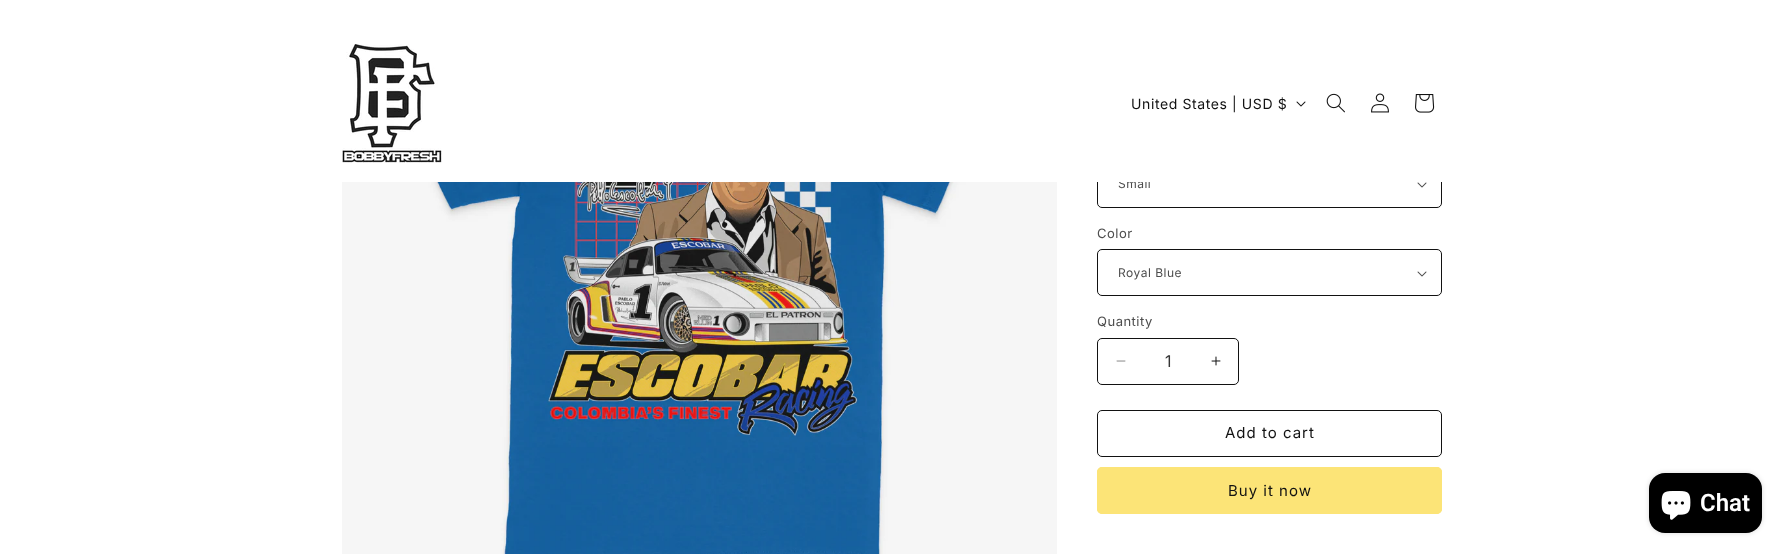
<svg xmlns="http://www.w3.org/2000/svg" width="1784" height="554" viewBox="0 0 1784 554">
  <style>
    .t1 { font: 12px Inter; letter-spacing: 0.5px; fill: #4d4d4d; }
    .t2 { font: 14px Inter; letter-spacing: 0.6px; fill: #121212; }
    .t3 { font: 13px Inter; letter-spacing: 0.5px; fill: #4d4d4d; }
    .t4 { font: 16px 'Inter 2'; fill: #363636; }
    .t5 { font: 15px Inter; letter-spacing: 1px; fill: #121212; }
    .t6 { font: 600 24px Roboto; fill: #fff; }
  </style>
  <rect width="100%" height="100%" fill="#fff"/>
  <image x="1417" y="182" width="10" height="6" href="images/7.png"/>
  <rect x="1097.5" y="161.5" width="344" height="46" rx="4.5" fill="none" stroke="#121212"/>
  <text x="1118" y="188" class="t1">Small</text>
  <rect x="1097" y="161" width="345" height="21" fill="#fff"/>
  <image x="342" y="44" width="100" height="119" href="images/1.png"/>
  <text x="1131" y="109" class="t2">United States | USD $</text>
  <image x="1296" y="101" width="10" height="6" href="images/2.png"/>
  <image x="1326" y="93" width="19" height="20" href="images/3.png"/>
  <image x="1371" y="93" width="18" height="20" href="images/4.png"/>
  <image x="1415" y="94" width="20" height="19" href="images/5.png"/>
  <image x="342" y="182" width="715" height="372" href="images/6.png"/>
  <text x="1097" y="238" class="t3">Color</text>
  <image x="1417" y="271" width="10" height="6" href="images/7.png"/>
  <rect x="1097.5" y="249.5" width="344" height="46" rx="4.5" fill="none" stroke="#121212"/>
  <text x="1118" y="277" class="t1">Royal Blue</text>
  <text x="1097" y="326" class="t3">Quantity</text>
  <image x="1116" y="360" width="10" height="2" href="images/8.png"/>
  <image x="1211" y="356" width="10" height="10" href="images/9.png"/>
  <rect x="1097.5" y="338.5" width="141" height="46" rx="4.5" fill="none" stroke="#121212"/>
  <text x="1165" y="367" class="t4">1</text>
  <rect x="1097.5" y="410.5" width="344" height="46" rx="4.5" fill="none" stroke="#121212"/>
  <text x="1225" y="438" class="t5">Add to cart</text>
  <rect x="1097" y="467" width="345" height="47" rx="5" fill="#fce477"/>
  <rect x="1097.5" y="467.5" width="344" height="46" rx="4.5" fill="none" stroke="#fce477"/>
  <text x="1228" y="496" class="t5">Buy it now</text>
  <rect x="1649" y="473" width="113" height="60" rx="16" fill="#00000026" filter="blur(2.5px)"/>
  <rect x="1649" y="473" width="113" height="60" rx="16" fill="#000"/>
  <image x="1661" y="491" width="30" height="29" href="images/10.png"/>
  <text x="1700" y="511" class="t6">Chat</text>
</svg>
